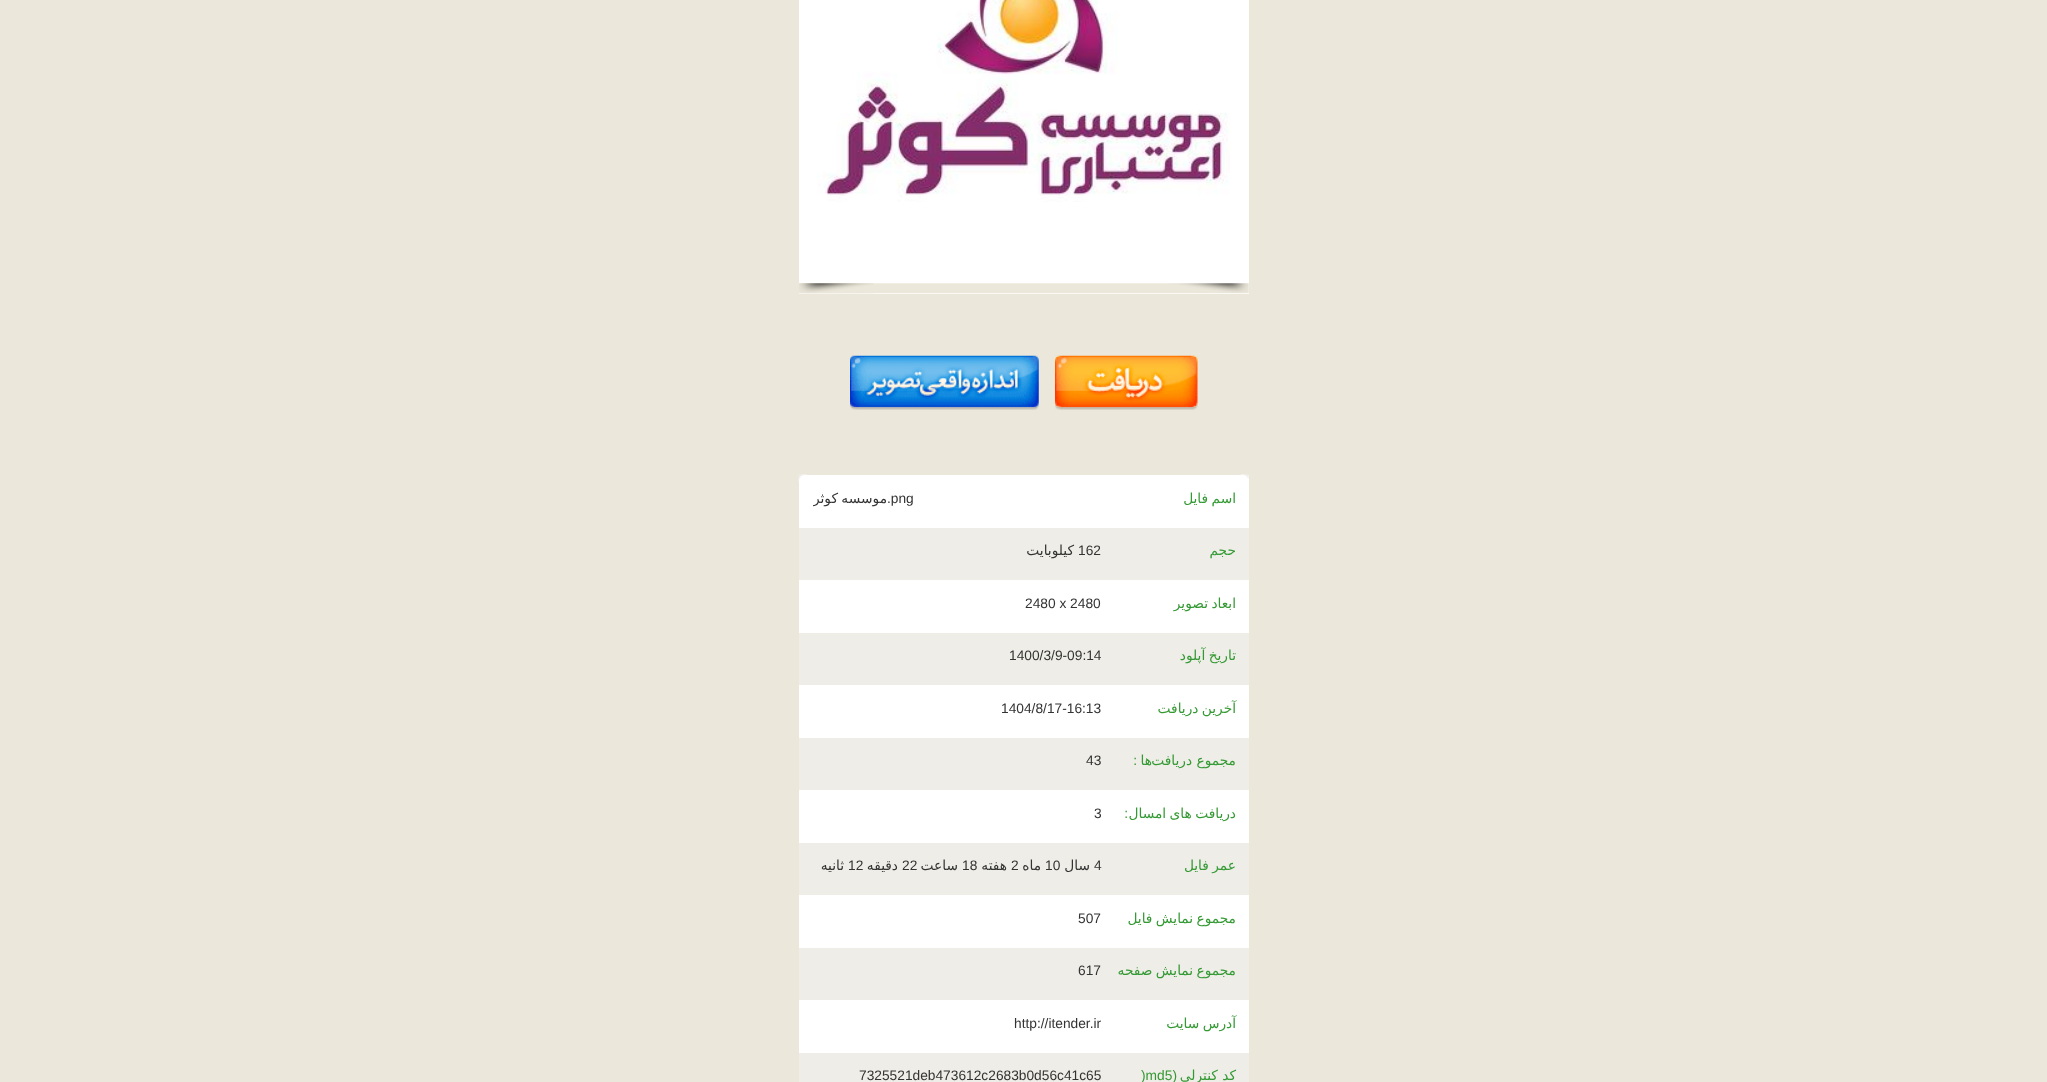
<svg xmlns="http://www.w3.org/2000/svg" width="2047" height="1082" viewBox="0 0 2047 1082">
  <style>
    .t1 { font: 13.75px DejaVu Sans; direction: rtl; fill: #393; }
    .t2 { font: 13.75px Liberation Sans; fill: #333; }
    .t3 { font: 13.75px DejaVu Sans; direction: rtl; fill: #333; }
    .t4 { font: 13.75px Liberation Sans; direction: rtl; fill: #393; }
    .t5 { font: 13.75px Liberation Sans; fill: #393; }
  </style>
  <defs>
    <clipPath id="clip1"><rect x="813" y="488" width="288" height="21"/></clipPath>
  </defs>
  <rect width="100%" height="100%" fill="#ebe7da"/>
  <rect x="799" y="0" width="450" height="294" fill="#fff"/>
  <image x="799" y="283" width="450" height="11" href="images/1.png"/>
  <image x="799" y="283" width="75" height="11" href="images/2.png"/>
  <image x="817" y="0" width="413" height="202" href="images/3.png"/>
  <image x="1055" y="355" width="143" height="55" href="images/4.png"/>
  <image x="850" y="355" width="189" height="55" href="images/5.png"/>
  <rect x="799" y="475" width="450" height="578" fill="#fff"/>
  <image x="1241" y="474" width="8" height="5" href="images/6.png"/>
  <image x="798" y="474" width="9" height="8" href="images/7.png"/>
  <text x="1236" y="503" word-spacing="-1" class="t1">اسم فایل</text>
  <text x="887" y="503" class="t2">.png</text>
  <g clip-path="url(#clip1)">
    <text x="887" y="503" word-spacing="-1" class="t3">موسسه کوثر</text>
  </g>
  <rect x="799" y="528" width="450" height="52" fill="#eeede7"/>
  <text x="1236" y="555" class="t1">حجم</text>
  <text x="1078" y="555" class="t2">162</text>
  <text x="1074" y="555" class="t3">کیلوبایت</text>
  <text x="1236" y="608" word-spacing="-1" class="t1">ابعاد تصویر</text>
  <text x="1025" y="608" class="t2">2480 x 2480</text>
  <rect x="799" y="633" width="450" height="52" fill="#eeede7"/>
  <text x="1236" y="660" word-spacing="-1" class="t1">تاریخ آپلود</text>
  <text x="1009" y="660" class="t2">1400/3/9-09:14</text>
  <text x="1236" y="713" word-spacing="-1" class="t1">آخرین دریافت</text>
  <text x="1001" y="713" class="t2">1404/8/17-16:13</text>
  <rect x="799" y="738" width="450" height="52" fill="#eeede7"/>
  <text x="1236" y="765" class="t1">مجموع دریافت</text>
  <text x="1152" y="765" class="t1">ها</text>
  <text x="1137" y="765" class="t4">:</text>
  <text x="1086" y="765" class="t2">43</text>
  <text x="1236" y="818" word-spacing="-1" class="t1">دریافت های امسال</text>
  <text x="1128" y="818" class="t4">:</text>
  <text x="1094" y="818" class="t2">3</text>
  <rect x="799" y="843" width="450" height="52" fill="#eeede7"/>
  <text x="1236" y="870" word-spacing="-1" class="t1">عمر فایل</text>
  <text x="1094" y="870" class="t2">4</text>
  <text x="1090" y="870" class="t3">سال</text>
  <text x="1045" y="870" class="t2">10</text>
  <text x="1041" y="870" class="t3">ماه</text>
  <text x="1011" y="870" class="t2">2</text>
  <text x="1007" y="870" class="t3">هفته</text>
  <text x="962" y="870" class="t2">18</text>
  <text x="958" y="870" class="t3">ساعت</text>
  <text x="902" y="870" class="t2">22</text>
  <text x="898" y="870" class="t3">دقیقه</text>
  <text x="848" y="870" class="t2">12</text>
  <text x="844" y="870" class="t3">ثانیه</text>
  <text x="1236" y="923" word-spacing="-1" class="t1">مجموع نمایش فایل</text>
  <text x="1078" y="923" class="t2">507</text>
  <rect x="799" y="948" width="450" height="52" fill="#eeede7"/>
  <text x="1236" y="975" word-spacing="-1" class="t1">مجموع نمایش صفحه</text>
  <text x="1078" y="975" class="t2">617</text>
  <text x="1236" y="1028" word-spacing="-1" class="t1">آدرس سایت</text>
  <text x="1014" y="1028" class="t2">http://itender.ir</text>
  <rect x="799" y="1053" width="450" height="29" fill="#eeede7"/>
  <text x="1236" y="1080" class="t1">کد کنترلی</text>
  <text x="1177" y="1080" class="t4">(</text>
  <text x="1141" y="1080" class="t5">)md5</text>
  <text x="859" y="1080" class="t2">7325521deb473612c2683b0d56c41c65</text>
</svg>
